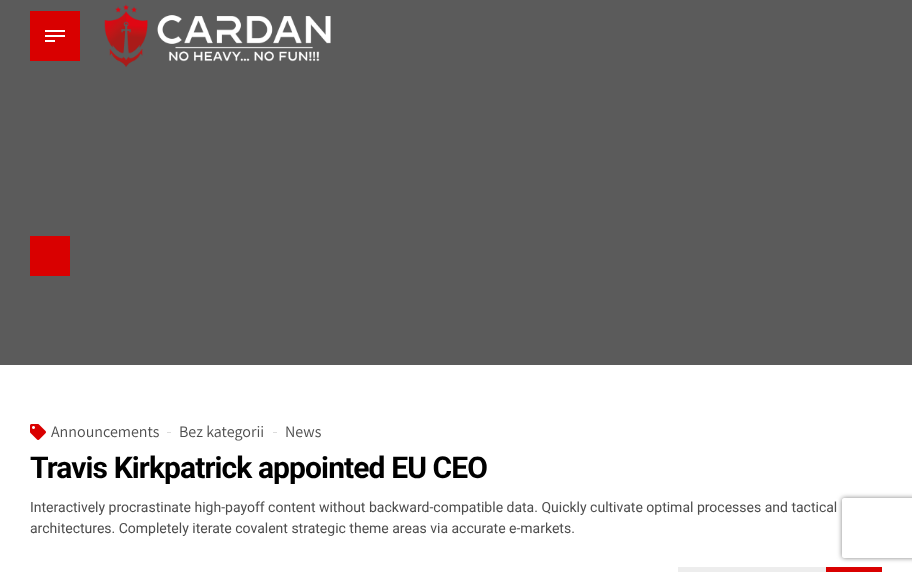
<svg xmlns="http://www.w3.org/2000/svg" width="912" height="572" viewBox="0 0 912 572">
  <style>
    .t1 { font: 16px Assistant; fill: #4d4d4d; }
    .t2 { font: bold 30px Roboto; letter-spacing: -0.9px; fill: #000; }
    .t3 { font: 14px Roboto; fill: #4d4d4d; }
  </style>
  <defs>
    <clipPath id="clip1"><path d="M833 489H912V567H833ZM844 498H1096C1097 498 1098 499 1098 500V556C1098 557 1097 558 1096 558H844C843 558 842 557 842 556V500C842 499 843 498 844 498Z" clip-rule="evenodd"/></clipPath>
  </defs>
  <rect width="100%" height="100%" fill="#fff"/>
  <rect x="0" y="0" width="912" height="365" fill="#5b5b5b"/>
  <rect x="30" y="11" width="50" height="50" fill="#d90000"/>
  <rect x="45" y="30" width="20" height="2" fill="#fff"/>
  <rect x="45" y="35" width="20" height="2" fill="#fff"/>
  <rect x="45" y="40" width="10" height="2" fill="#fff"/>
  <image x="104" y="4" width="227" height="63" href="images/1.png"/>
  <rect x="30" y="236" width="40" height="40" fill="#d90000"/>
  <image x="30" y="424" width="16" height="16" href="images/2.png"/>
  <text x="51" y="437" class="t1">Announcements</text>
  <rect x="167" y="432" width="4" height="1" fill="#dbdbdb"/>
  <text x="179" y="437" class="t1">Bez kategorii</text>
  <rect x="273" y="432" width="4" height="1" fill="#dbdbdb"/>
  <text x="285" y="437" class="t1">News</text>
  <text x="30" y="478" class="t2">Travis Kirkpatrick appointed EU CEO</text>
  <text x="30" y="512" class="t3">Interactively procrastinate high-payoff content without backward-compatible data. Quickly cultivate optimal processes and tactical</text>
  <text x="30" y="533" class="t3">architectures. Completely iterate covalent strategic theme areas via accurate e-markets.</text>
  <rect x="678" y="567" width="148" height="5" fill="#ededed"/>
  <rect x="826" y="567" width="56" height="5" fill="#d90000"/>
  <g clip-path="url(#clip1)">
    <rect x="842" y="498" width="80" height="60" rx="2" fill="#808080" filter="blur(2.5px)"/>
  </g>
</svg>
